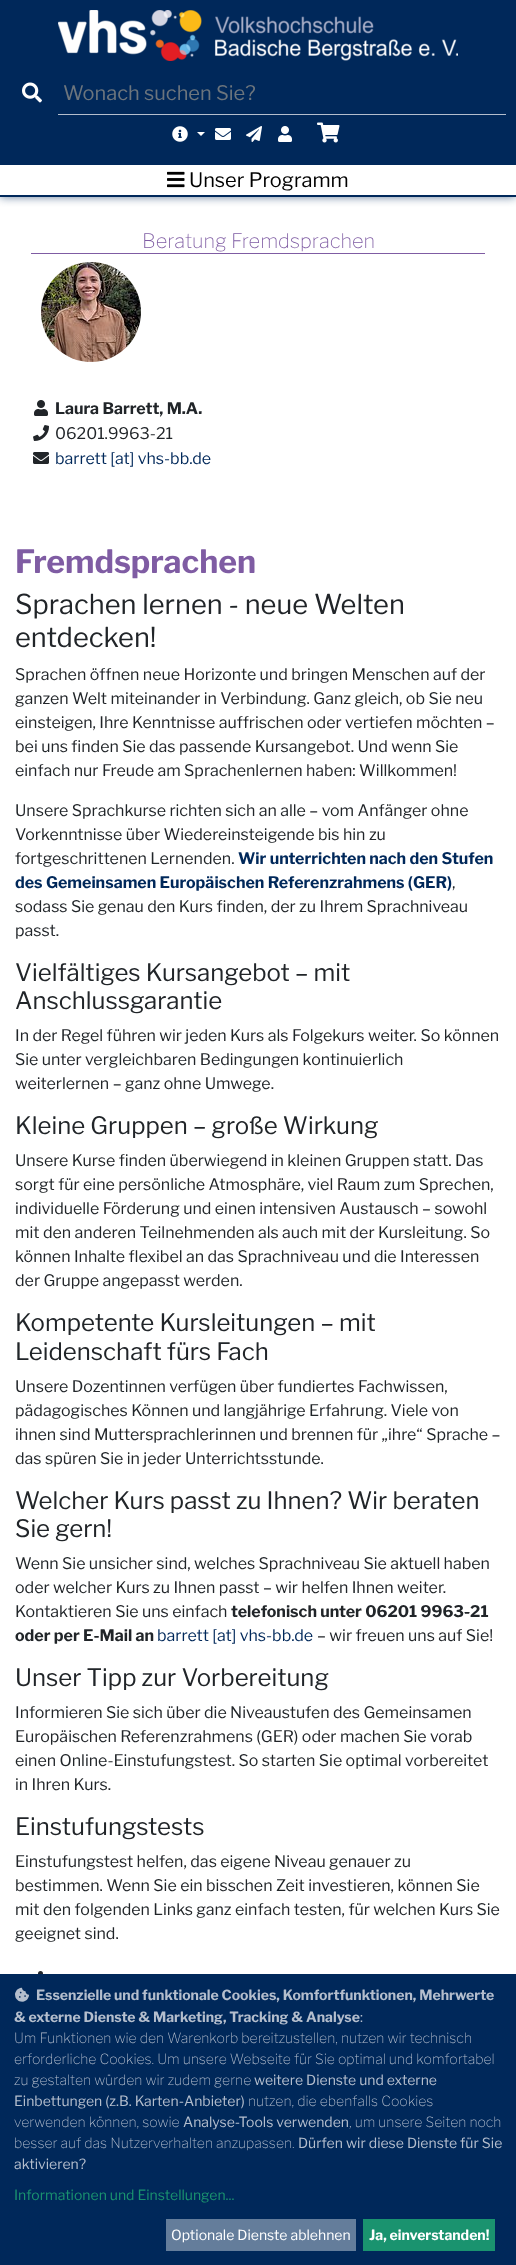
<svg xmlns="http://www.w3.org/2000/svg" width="516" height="2265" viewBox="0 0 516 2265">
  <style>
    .t1 { font: 20px Libre Franklin; fill: #6c757d; }
    .t2 { font: 20px Libre Franklin; fill: #000; }
    .t3 { font: 100 20px Libre Franklin; fill: #7f5ca3; }
    .t4 { font: bold 16px Libre Franklin; fill: #212529; }
    .t5 { font: 16px Libre Franklin; fill: #212529; }
    .t6 { font: 16px Libre Franklin; fill: #00285a; }
    .t7 { font: bold 32px Libre Franklin; fill: #7f5ca3; }
    .t8 { font: 27.25px Libre Franklin; fill: #212529; }
    .t9 { font: bold 16px Libre Franklin; fill: #00285a; }
    .t10 { font: 24px Libre Franklin; fill: #212529; }
    .t11 { font: bold 14px Libre Franklin; fill: #b4becd; }
    .t12 { font: 14px Libre Franklin; fill: #b4becd; }
    .t13 { font: 100 14px Libre Franklin; fill: #b4becd; }
    .t14 { font: 14px Libre Franklin; fill: #1a936f; }
    .t15 { font: 14px Libre Franklin; fill: #fff; }
    .t16 { font: bold 14px Libre Franklin; fill: #fff; }
  </style>
  <defs>
    <clipPath id="clip1"><rect x="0" y="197" width="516" height="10"/></clipPath>
  </defs>
  <rect width="100%" height="100%" fill="#fff"/>
  <g clip-path="url(#clip1)">
    <rect x="0" y="0" width="516" height="197" fill="#647d9b" filter="blur(5px)"/>
  </g>
  <rect x="0" y="195" width="516" height="2" fill="#00285a"/>
  <rect x="0" y="0" width="516" height="165" fill="#00285a"/>
  <image x="58" y="10" width="400" height="51" href="images/1.png"/>
  <image x="22" y="82" width="20" height="21" href="images/2.png"/>
  <rect x="58" y="114" width="448" height="1" fill="#b4becd"/>
  <text x="63" y="100" class="t1">Wonach suchen Sie?</text>
  <image x="172" y="126" width="16" height="16" href="images/3.png"/>
  <path d="M197 132H205L201 136Z" fill="#fff"/>
  <image x="215" y="128" width="16" height="12" href="images/4.png"/>
  <image x="246" y="126" width="16" height="16" href="images/5.png"/>
  <image x="278" y="126" width="14" height="16" href="images/6.png"/>
  <image x="317" y="122" width="23" height="21" href="images/7.png"/>
  <image x="167" y="171" width="18" height="17" href="images/8.png"/>
  <text x="189" y="187" class="t2">Unser Programm</text>
  <rect x="31" y="253" width="454" height="1" fill="#7f5ca3"/>
  <text x="142" y="248" class="t3">Beratung Fremdsprachen</text>
  <image x="41" y="262" width="100" height="100" href="images/9.png"/>
  <image x="34" y="400" width="14" height="16" href="images/10.png"/>
  <text x="55" y="414" class="t4">Laura Barrett, M.A.</text>
  <image x="33" y="425" width="16" height="16" href="images/11.png"/>
  <text x="55" y="439" class="t5">06201.9963-21</text>
  <image x="33" y="452" width="16" height="12" href="images/12.png"/>
  <text x="55" y="464" class="t6">barrett [at] vhs-bb.de</text>
  <text x="15" y="573" class="t7">Fremdsprachen</text>
  <text x="15" y="614" class="t8">Sprachen lernen - neue Welten</text>
  <text x="15" y="647" class="t8">entdecken!</text>
  <text x="15" y="680" class="t5">Sprachen öffnen neue Horizonte und bringen Menschen auf der</text>
  <text x="15" y="704" class="t5">ganzen Welt miteinander in Verbindung. Ganz gleich, ob Sie neu</text>
  <text x="15" y="728" class="t5">einsteigen, Ihre Kenntnisse auffrischen oder vertiefen möchten –</text>
  <text x="15" y="752" class="t5">bei uns finden Sie das passende Kursangebot. Und wenn Sie</text>
  <text x="15" y="776" class="t5">einfach nur Freude am Sprachenlernen haben: Willkommen!</text>
  <text x="15" y="816" class="t5">Unsere Sprachkurse richten sich an alle – vom Anfänger ohne</text>
  <text x="15" y="840" class="t5">Vorkenntnisse über Wiedereinsteigende bis hin zu</text>
  <text x="15" y="864" class="t5">fortgeschrittenen Lernenden.</text>
  <text x="238" y="864" class="t9">Wir unterrichten nach den Stufen</text>
  <text x="15" y="888" class="t9">des Gemeinsamen Europäischen Referenzrahmens (GER)</text>
  <text x="452" y="888" class="t5">,</text>
  <text x="15" y="912" class="t5">sodass Sie genau den Kurs finden, der zu Ihrem Sprachniveau</text>
  <text x="15" y="936" class="t5">passt.</text>
  <text x="15" y="981" class="t10">Vielfältiges Kursangebot – mit</text>
  <text x="15" y="1009" class="t10">Anschlussgarantie</text>
  <text x="15" y="1041" class="t5">In der Regel führen wir jeden Kurs als Folgekurs weiter. So können</text>
  <text x="15" y="1065" class="t5">Sie unter vergleichbaren Bedingungen kontinuierlich</text>
  <text x="15" y="1089" class="t5">weiterlernen – ganz ohne Umwege.</text>
  <text x="15" y="1134" class="t10">Kleine Gruppen – große Wirkung</text>
  <text x="15" y="1166" class="t5">Unsere Kurse finden überwiegend in kleinen Gruppen statt. Das</text>
  <text x="15" y="1190" class="t5">sorgt für eine persönliche Atmosphäre, viel Raum zum Sprechen,</text>
  <text x="15" y="1214" class="t5">individuelle Förderung und einen intensiven Austausch – sowohl</text>
  <text x="15" y="1238" class="t5">mit den anderen Teilnehmenden als auch mit der Kursleitung. So</text>
  <text x="15" y="1262" class="t5">können Inhalte flexibel an das Sprachniveau und die Interessen</text>
  <text x="15" y="1286" class="t5">der Gruppe angepasst werden.</text>
  <text x="15" y="1331" class="t10">Kompetente Kursleitungen – mit</text>
  <text x="15" y="1360" class="t10">Leidenschaft fürs Fach</text>
  <text x="15" y="1392" class="t5">Unsere Dozentinnen verfügen über fundiertes Fachwissen,</text>
  <text x="15" y="1416" class="t5">pädagogisches Können und langjährige Erfahrung. Viele von</text>
  <text x="15" y="1440" class="t5">ihnen sind Muttersprachlerinnen und brennen für „ihre“ Sprache –</text>
  <text x="15" y="1464" class="t5">das spüren Sie in jeder Unterrichtsstunde.</text>
  <text x="15" y="1509" class="t10">Welcher Kurs passt zu Ihnen? Wir beraten</text>
  <text x="15" y="1537" class="t10">Sie gern!</text>
  <text x="15" y="1569" class="t5">Wenn Sie unsicher sind, welches Sprachniveau Sie aktuell haben</text>
  <text x="15" y="1593" class="t5">oder welcher Kurs zu Ihnen passt – wir helfen Ihnen weiter.</text>
  <text x="15" y="1617" class="t5">Kontaktieren Sie uns einfach</text>
  <text x="231" y="1617" class="t4">telefonisch unter 06201 9963-21</text>
  <text x="15" y="1641" class="t4">oder per E-Mail an</text>
  <text x="157" y="1641" class="t6">barrett [at] vhs-bb.de</text>
  <text x="317" y="1641" class="t5">– wir freuen uns auf Sie!</text>
  <text x="15" y="1686" class="t10">Unser Tipp zur Vorbereitung</text>
  <text x="15" y="1718" class="t5">Informieren Sie sich über die Niveaustufen des Gemeinsamen</text>
  <text x="15" y="1742" class="t5">Europäischen Referenzrahmens (GER) oder machen Sie vorab</text>
  <text x="15" y="1766" class="t5">einen Online-Einstufungstest. So starten Sie optimal vorbereitet</text>
  <text x="15" y="1790" class="t5">in Ihren Kurs.</text>
  <text x="15" y="1835" class="t10">Einstufungstests</text>
  <text x="15" y="1867" class="t5">Einstufungstest helfen, das eigene Niveau genauer zu</text>
  <text x="15" y="1891" class="t5">bestimmen. Wenn Sie ein bisschen Zeit investieren, können Sie</text>
  <text x="15" y="1915" class="t5">mit den folgenden Links ganz einfach testen, für welchen Kurs Sie</text>
  <text x="15" y="1939" class="t5">geeignet sind.</text>
  <circle cx="40.5" cy="1973.5" r="2.5" fill="#212529"/>
  <rect x="0" y="1974" width="516" height="291" fill="#00285a"/>
  <image x="15" y="1987" width="14" height="15" href="images/13.png"/>
  <text x="36" y="2000" class="t11">Essenzielle und funktionale Cookies, Komfortfunktionen, Mehrwerte</text>
  <text x="14" y="2022" class="t11">&amp; externe Dienste &amp; Marketing, Tracking &amp; Analyse</text>
  <text x="360" y="2022" class="t12">:</text>
  <text x="14" y="2043" class="t13">Um Funktionen wie den Warenkorb bereitzustellen, nutzen wir technisch</text>
  <text x="14" y="2064" class="t13">erforderliche Cookies. Um unsere Webseite für Sie optimal und komfortabel</text>
  <text x="14" y="2085" class="t13">zu gestalten würden wir zudem gerne</text>
  <text x="254" y="2085" class="t12">weitere Dienste und externe</text>
  <text x="14" y="2106" class="t12">Einbettungen (z.B. Karten-Anbieter)</text>
  <text x="248" y="2106" class="t13">nutzen, die ebenfalls Cookies</text>
  <text x="14" y="2127" class="t13">verwenden können, sowie</text>
  <text x="183" y="2127" class="t12">Analyse-Tools verwenden</text>
  <text x="349" y="2127" class="t13">, um unsere Seiten noch</text>
  <text x="14" y="2148" class="t13">besser auf das Nutzerverhalten anzupassen.</text>
  <text x="298" y="2148" class="t12">Dürfen wir diese Dienste für Sie</text>
  <text x="14" y="2169" class="t12">aktivieren?</text>
  <text x="14" y="2200" class="t14">Informationen und Einstellungen...</text>
  <rect x="166" y="2219" width="190" height="32" fill="#647d9b"/>
  <text x="171" y="2240" class="t15">Optionale Dienste ablehnen</text>
  <rect x="363" y="2219" width="132" height="32" fill="#1a936f"/>
  <text x="369" y="2240" class="t16">Ja, einverstanden!</text>
</svg>
